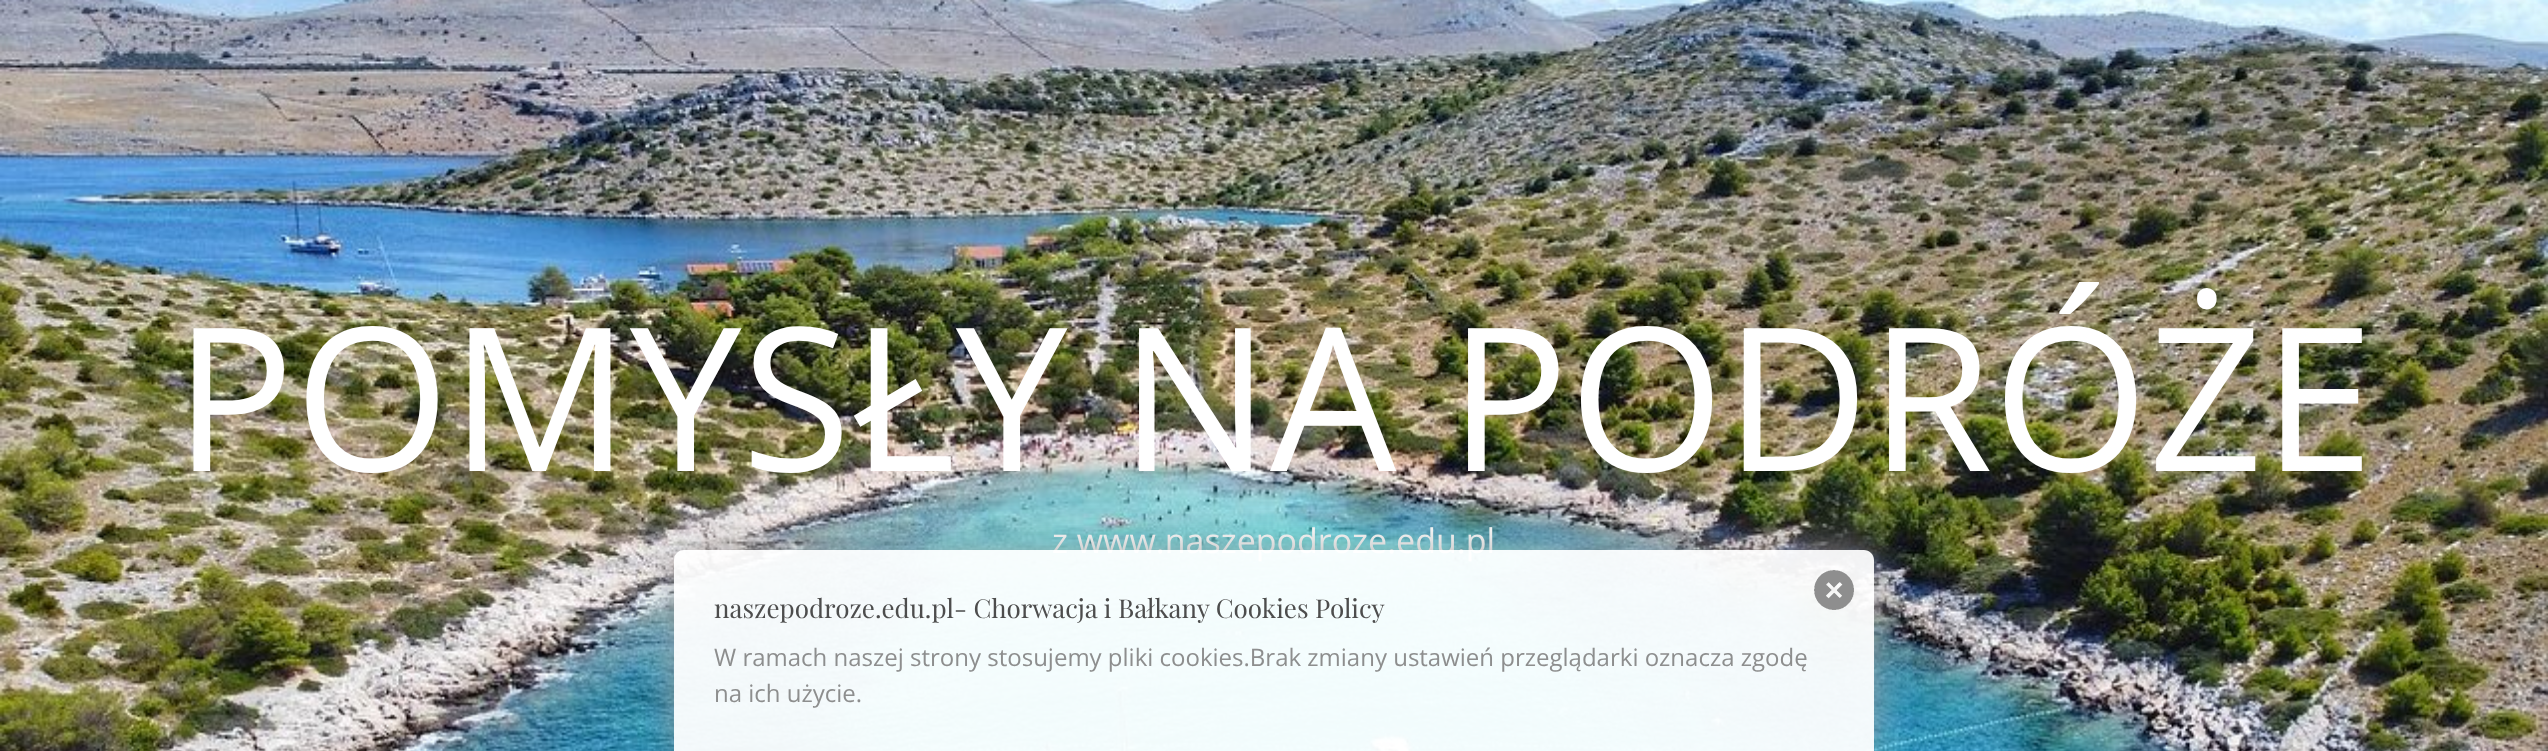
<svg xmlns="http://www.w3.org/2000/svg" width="2548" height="751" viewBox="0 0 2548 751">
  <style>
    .t1 { font: 200px Open Sans; fill: #fff; }
    .t2 { font: 34px Open Sans; fill: #fff; }
    .t3 { font: 26px Playfair Display; fill: #4d4d4d; }
    .t4 { font: 24px Open Sans; fill: #8d8e8e; }
  </style>
  <defs>
    <clipPath id="clip1"><path d="M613 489H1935V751H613ZM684 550H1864C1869.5 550 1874 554.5 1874 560V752H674V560C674 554.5 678.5 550 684 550Z" clip-rule="evenodd"/></clipPath>
  </defs>
  <rect width="100%" height="100%" fill="#fff"/>
  <image x="0" y="0" width="2548" height="751" href="images/1.png"/>
  <text x="174" y="471" class="t1">POMYSŁY NA PODRÓŻE</text>
  <text x="1052" y="553" class="t2">z www.naszepodroze.edu.pl</text>
  <g clip-path="url(#clip1)">
    <rect x="674" y="550" width="1200" height="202" rx="10" fill="#a1a1a1f2" filter="blur(20px)"/>
  </g>
  <path d="M684 550H1864C1869.5 550 1874 554.5 1874 560V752H674V560C674 554.5 678.5 550 684 550Z" fill="#fffffff2"/>
  <text x="714" y="618" class="t3">naszepodroze.edu.pl- Chorwacja i Bałkany Cookies Policy</text>
  <image x="1814" y="570" width="40" height="40" href="images/2.png"/>
  <text x="714" y="666" class="t4">W ramach naszej strony stosujemy pliki cookies.Brak zmiany ustawień przeglądarki oznacza zgodę</text>
  <text x="714" y="702" class="t4">na ich użycie.</text>
</svg>
